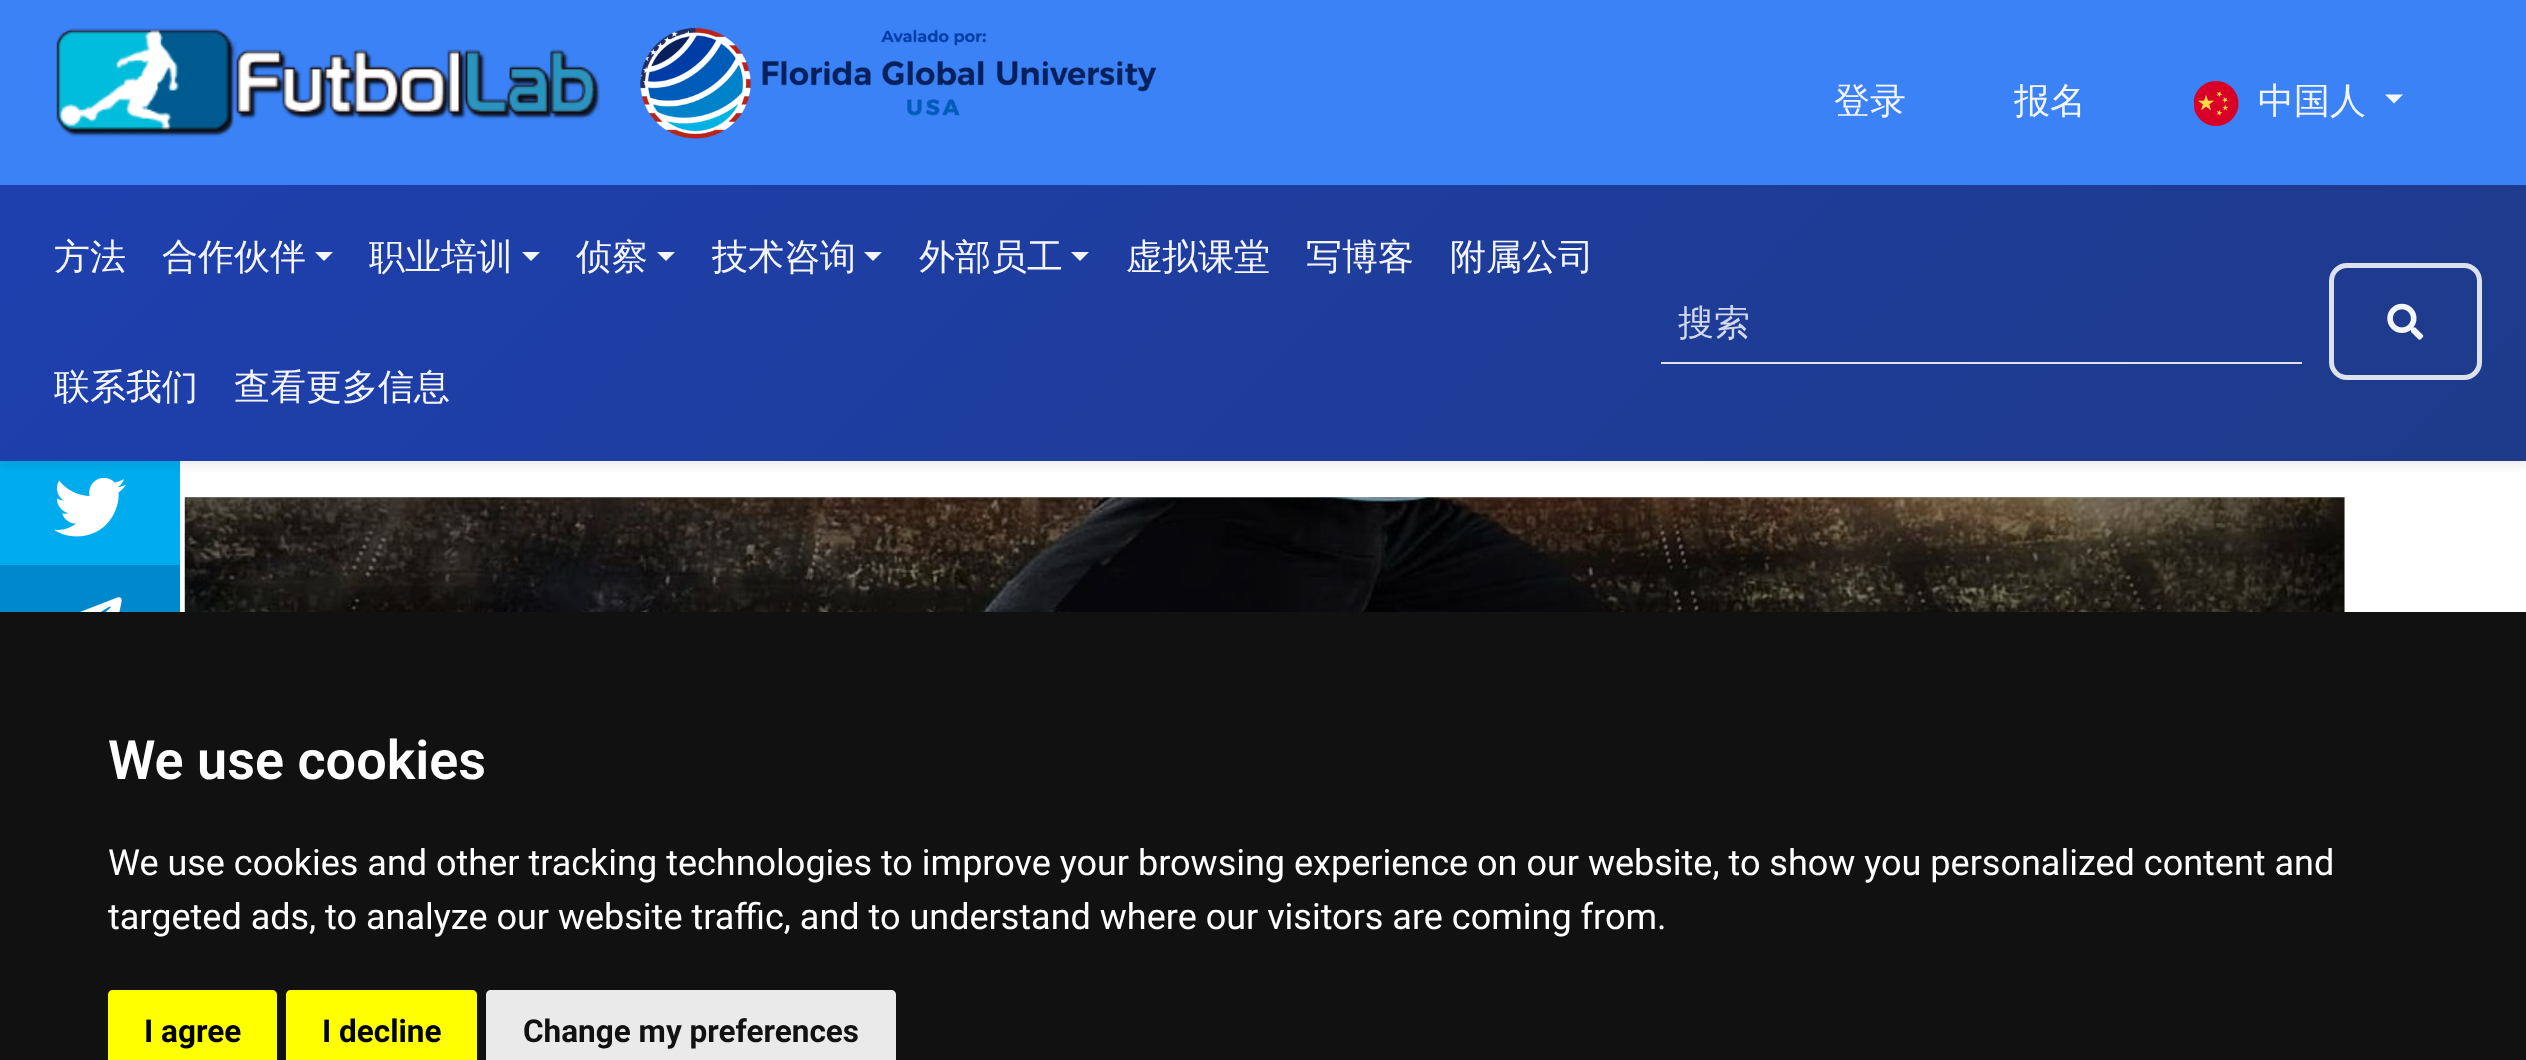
<svg xmlns="http://www.w3.org/2000/svg" width="2526" height="1060" viewBox="0 0 2526 1060">
  <style>
    .t1 { font: 500 36px WenQuanYi Zen Hei; fill: #f4f5fb; }
    .t2 { font: 500 36px WenQuanYi Zen Hei; fill: #d2d8ea; }
    .t3 { font: 600 54px Roboto; fill: #fff; }
    .t4 { font: 36px Roboto; fill: #fff; }
    .t5 { font: bold 31.5px Roboto; fill: #000; }
    .t6 { font: bold 31.5px Roboto; fill: #111; }
  </style>
  <defs>
    <linearGradient id="g1" gradientUnits="userSpaceOnUse" x1="562" y1="-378" x2="1964" y2="1024"><stop offset="0" stop-color="#1e40af"/><stop offset="1" stop-color="#1e3a8a"/></linearGradient>
    <linearGradient id="g2" gradientUnits="userSpaceOnUse" x1="562" y1="-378" x2="1964" y2="1024"><stop offset="0" stop-color="#dde2f3"/><stop offset="1" stop-color="#dde1ed"/></linearGradient>
  </defs>
  <rect width="100%" height="100%" fill="#fff"/>
  <rect x="0" y="461" width="180" height="104" fill="#00aced"/>
  <image x="54" y="477" width="72" height="60" href="images/5.png"/>
  <rect x="0" y="189" width="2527" height="277" fill="#00000012" filter="blur(4.5px)"/>
  <rect x="0" y="0" width="2526" height="185" fill="#3b82f6"/>
  <image x="56" y="28" width="544" height="109" href="images/1.png"/>
  <image x="640" y="27" width="517" height="112" href="images/2.png"/>
  <text x="1834" y="113" class="t1">登录</text>
  <text x="2014" y="113" class="t1">报名</text>
  <image x="2194" y="81" width="45" height="45" href="images/3.png"/>
  <text x="2258" y="113" class="t1">中国人</text>
  <path d="M2385 94.5H2403L2394 103.5Z" fill="#f5f9ff"/>
  <rect x="0" y="185" width="2526" height="276" fill="url(#g1)"/>
  <rect x="1661" y="362" width="641" height="2" fill="url(#g2)"/>
  <text x="54" y="269" class="t1">方法</text>
  <text x="162" y="269" class="t1">合作伙伴</text>
  <path d="M315 252H333L324 261Z" fill="#f4f5fb"/>
  <text x="369" y="269" class="t1">职业培训</text>
  <path d="M522 252H540L531 261Z" fill="#f4f5fb"/>
  <text x="576" y="269" class="t1">侦察</text>
  <path d="M657 252H675L666 261Z" fill="#f4f5fb"/>
  <text x="712" y="269" class="t1">技术咨询</text>
  <path d="M864 252H882L873 261Z" fill="#f4f5fa"/>
  <text x="919" y="269" class="t1">外部员工</text>
  <path d="M1071 252H1089L1080 261Z" fill="#f4f5fa"/>
  <text x="1126" y="269" class="t1">虚拟课堂</text>
  <text x="1306" y="269" class="t1">写博客</text>
  <text x="1450" y="269" class="t1">附属公司</text>
  <text x="54" y="399" class="t1">联系我们</text>
  <text x="234" y="399" class="t1">查看更多信息</text>
  <text x="1678" y="335" class="t2">搜索</text>
  <rect x="2331.5" y="265.5" width="148" height="112" rx="15.5" fill="none" stroke="#ffffffd9" stroke-width="5"/>
  <image x="2387" y="303" width="37" height="37" href="images/4.png"/>
  <rect x="0" y="565" width="180" height="47" fill="#08c"/>
  <image x="80" y="597" width="42" height="15" href="images/6.png"/>
  <rect x="185" y="497" width="2160" height="115" fill="#a3a3a4"/>
  <image x="184" y="497" width="2161" height="115" href="images/7.png"/>
  <rect x="0" y="612" width="2526" height="448" fill="#111"/>
  <text x="108" y="779" class="t3">We use cookies</text>
  <text x="108" y="875" class="t4">We use cookies and other tracking technologies to improve your browsing experience on our website, to show you personalized content and</text>
  <text x="108" y="929" class="t4">targeted ads, to analyze our website traffic, and to understand where our visitors are coming from.</text>
  <path d="M113 990H272C275 990 277 992 277 995V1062H108V995C108 992 110 990 113 990Z" fill="#ff0"/>
  <text x="144" y="1042" class="t5">I agree</text>
  <path d="M291 990H472C475 990 477 992 477 995V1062H286V995C286 992 288 990 291 990Z" fill="#ff0"/>
  <text x="322" y="1042" class="t5">I decline</text>
  <path d="M491 990H891C894 990 896 992 896 995V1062H486V995C486 992 488 990 491 990Z" fill="#eaeaea"/>
  <text x="523" y="1042" class="t6">Change my preferences</text>
</svg>
